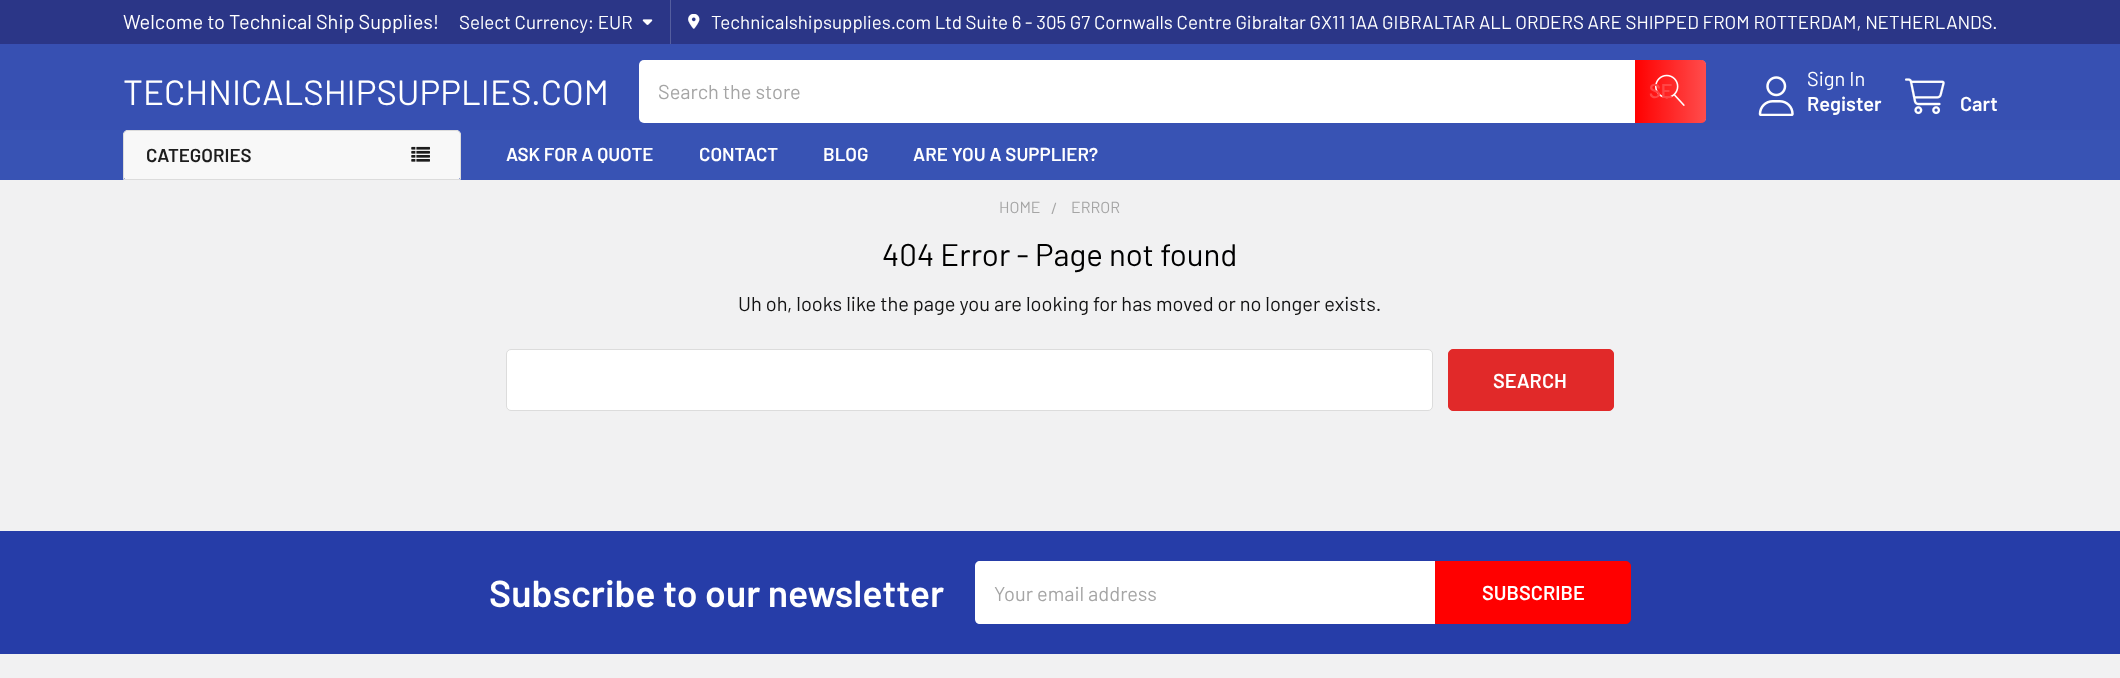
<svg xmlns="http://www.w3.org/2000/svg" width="2120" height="678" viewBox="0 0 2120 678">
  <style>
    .t1 { font: 20px Barlow; fill: #fff; }
    .t2 { font: 18.75px Barlow; fill: #fff; }
    .t3 { font: 35px Barlow; fill: #fff; }
    .t4 { font: 20px Barlow; fill: #a5a5a5; }
    .t5 { font: 600 20px Barlow; fill: #ff4646; }
    .t6 { font: 600 20px Barlow; fill: #fff; }
    .t7 { font: 600 18.75px Barlow; fill: #1d1d1d; }
    .t8 { font: 600 18.75px Barlow; fill: #fff; }
    .t9 { font: 16px Barlow; fill: #a5a5a5; }
    .t10 { font: 31.25px Barlow; fill: #000; }
    .t11 { font: 20px Barlow; fill: #131313; }
    .t12 { font: 600 37.5px Barlow; fill: #fff; }
  </style>
  <defs>
    <linearGradient id="g1" gradientUnits="userSpaceOnUse" x1="1635" y1="91" x2="1706" y2="91"><stop offset="0" stop-color="#f00"/><stop offset="1" stop-color="#f00" stop-opacity="0.7"/></linearGradient>
  </defs>
  <rect width="100%" height="100%" fill="#f1f1f2"/>
  <rect x="0" y="45" width="2120" height="85" fill="#3750b2"/>
  <rect x="0" y="0" width="2120" height="44" fill="#2b3687"/>
  <rect x="0" y="44" width="2120" height="1" fill="#384fb2"/>
  <text x="123" y="29" class="t1">Welcome to Technical Ship Supplies!</text>
  <text x="459" y="29" class="t2">Select Currency: EUR</text>
  <image x="642" y="19" width="11" height="6" href="images/1.png"/>
  <rect x="670" y="0" width="1" height="44" fill="#555e9f"/>
  <image x="688" y="14" width="12" height="15" href="images/2.png"/>
  <text x="711" y="29" class="t2">Technicalshipsupplies.com Ltd Suite 6 - 305 G7 Cornwalls Centre Gibraltar GX11 1AA GIBRALTAR ALL ORDERS ARE SHIPPED FROM ROTTERDAM, NETHERLANDS.</text>
  <text x="123" y="105" class="t3">TECHNICALSHIPSUPPLIES.COM</text>
  <rect x="639" y="60" width="1067" height="63" rx="5" fill="#fff"/>
  <path d="M1635 60H1701C1704 60 1706 62 1706 65V118C1706 121 1704 123 1701 123H1635Z" fill="url(#g1)"/>
  <image x="1655" y="74" width="30" height="32" href="images/3.png"/>
  <text x="658" y="99" class="t4">Search the store</text>
  <text x="1649" y="98" class="t5">SE</text>
  <image x="1758" y="76" width="36" height="40" href="images/4.png"/>
  <text x="1807" y="86" class="t1">Sign In</text>
  <text x="1807" y="111" class="t6">Register</text>
  <image x="1905" y="78" width="40" height="37" href="images/5.png"/>
  <text x="1960" y="111" class="t6">Cart</text>
  <rect x="0" y="130" width="2120" height="50" fill="#3853b4"/>
  <rect x="123" y="130" width="338" height="50" rx="5" fill="#f8f8f8"/>
  <path d="M128 130.5H456C458.5 130.5 460.5 132.5 460.5 135V179.5H123.5V135C123.5 132.5 125.5 130.5 128 130.5Z" fill="none" stroke="#dcdcdc"/>
  <text x="146" y="162" class="t7">CATEGORIES</text>
  <image x="411" y="146" width="19" height="16" href="images/6.png"/>
  <text x="506" y="161" class="t8">ASK FOR A QUOTE</text>
  <text x="699" y="161" class="t8">CONTACT</text>
  <text x="823" y="161" class="t8">BLOG</text>
  <text x="913" y="161" class="t8">ARE YOU A SUPPLIER?</text>
  <text x="999" y="213" class="t9">HOME</text>
  <text x="1051" y="214" class="t9">/</text>
  <text x="1071" y="213" class="t9">ERROR</text>
  <text x="882" y="266" class="t10">404 Error - Page not found</text>
  <text x="738" y="311" class="t11">Uh oh, looks like the page you are looking for has moved or no longer exists.</text>
  <rect x="506.5" y="349.5" width="926" height="61" rx="4.5" fill="#fff" stroke="#dcdcdc"/>
  <rect x="1448.5" y="349.5" width="165" height="61" rx="4.5" fill="#e12929" stroke="#e12929"/>
  <text x="1493" y="388" class="t6">SEARCH</text>
  <rect x="0" y="531" width="2120" height="123" fill="#263da8"/>
  <text x="489" y="607" class="t12">Subscribe to our newsletter</text>
  <path d="M980 561H1435V624H980C977 624 975 622 975 619V566C975 563 977 561 980 561Z" fill="#fff"/>
  <text x="994" y="601" class="t4">Your email address</text>
  <path d="M1435.5 561.5H1626C1628.5 561.5 1630.5 563.5 1630.5 566V619C1630.5 621.5 1628.5 623.5 1626 623.5H1435.5Z" fill="#f00" stroke="#f00"/>
  <text x="1482" y="600" class="t6">SUBSCRIBE</text>
</svg>
